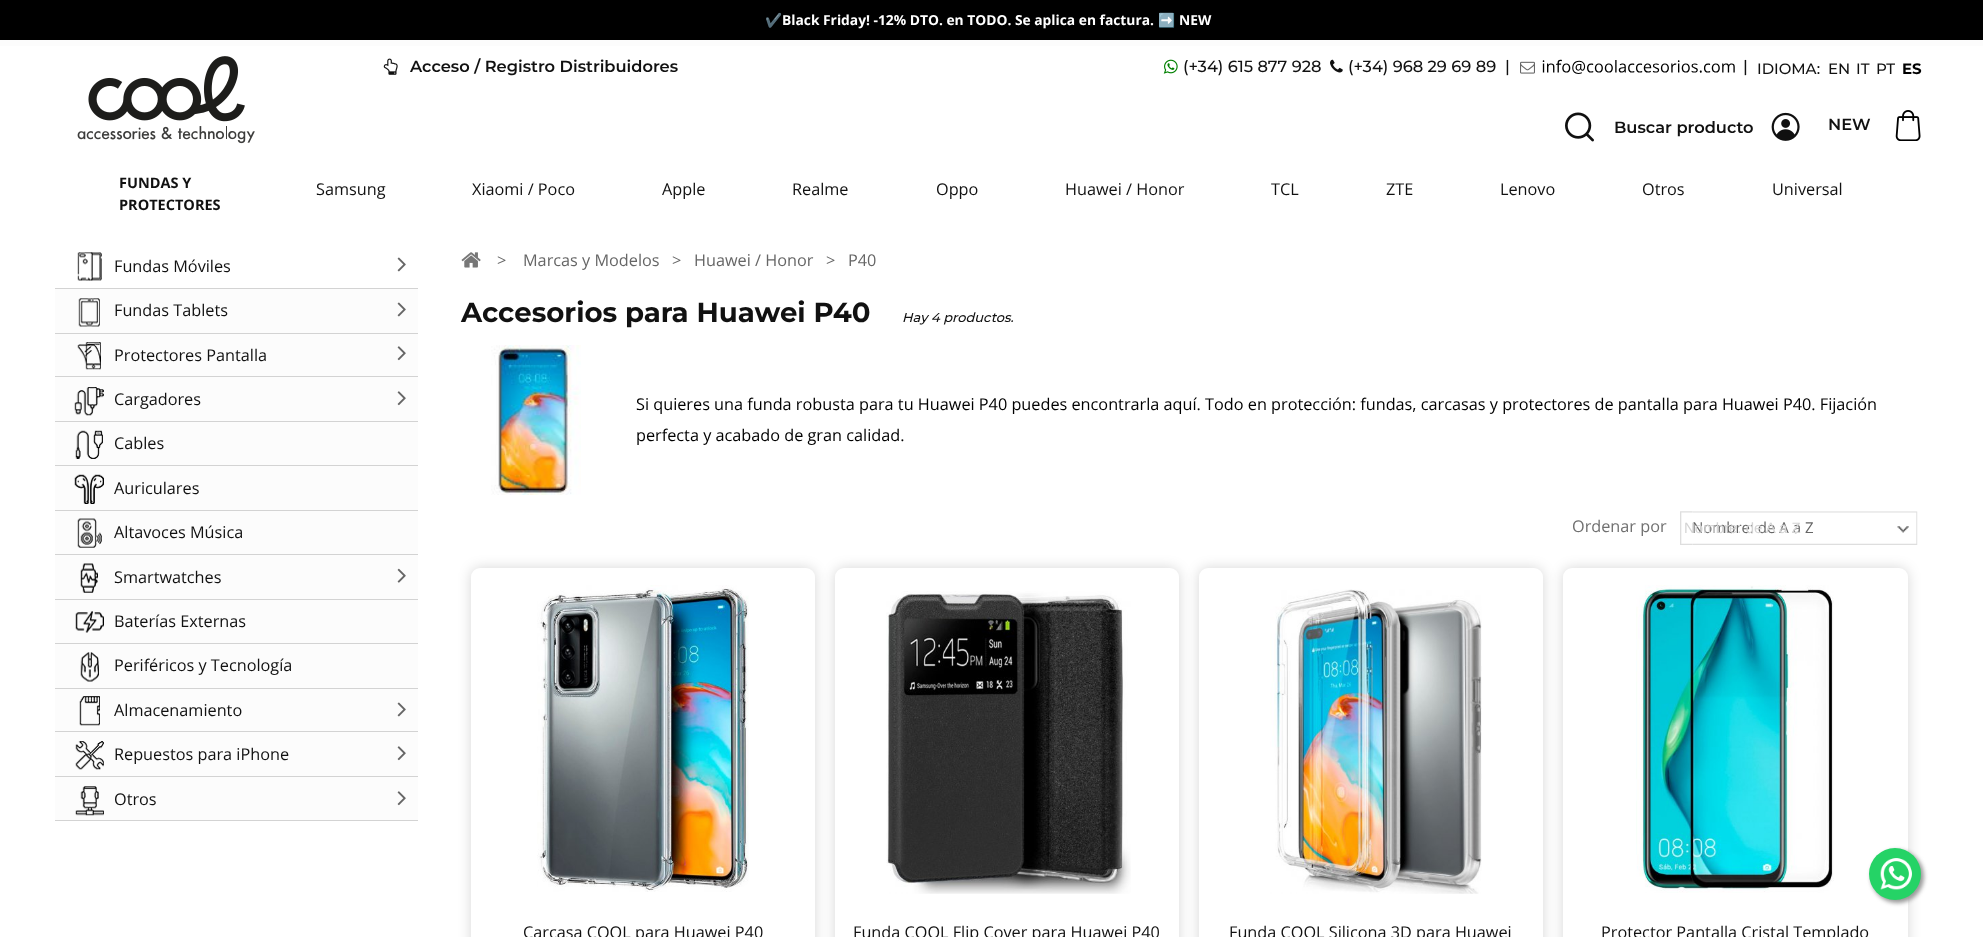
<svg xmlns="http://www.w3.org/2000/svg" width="1983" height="937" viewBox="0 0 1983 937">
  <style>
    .t1 { font: bold 13.8px Noto Color Emoji; fill: #fff; }
    .t2 { font: bold 13.8px Open Sans; fill: #fff; }
    .t3 { font: 100 16.25px 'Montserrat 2'; fill: #111; }
    .t4 { font: 100 16.25px 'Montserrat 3'; fill: #111; }
    .t5 { font: 100 15px 'Montserrat 3'; fill: #111; }
    .t6 { font: 100 15px Montserrat; fill: #000; }
    .t7 { font: bold 14.5px Open Sans; fill: #111; }
    .t8 { font: 16.25px Open Sans; fill: #111; }
    .t9 { font: 16.25px Open Sans; fill: #666; }
    .t10 { font: 100 27.6px Montserrat; fill: #111; }
    .t11 { font: italic 100 13px Montserrat; fill: #111; }
    .t12 { font: 16.25px Open Sans; fill: #000; }
    .t13 { font: 16.25px Open Sans; fill: #707070; }
    .t14 { font: 15px Open Sans; fill: #666; }
    .t15 { font: 15px Liberation Sans; fill: #d4d4d4; }
  </style>
  <rect width="100%" height="100%" fill="#fff"/>
  <rect x="0" y="40" width="1983" height="6" fill="#fcfcfc"/>
  <rect x="0" y="0" width="1983" height="40" fill="#000"/>
  <text x="765" y="25" class="t1">✔️</text>
  <text x="782" y="25" class="t2">Black Friday! -12% DTO. en TODO. Se aplica en factura.</text>
  <text x="1158" y="25" class="t1">➡️</text>
  <text x="1179" y="25" class="t2">NEW</text>
  <image x="77" y="56" width="178" height="88" href="images/1.png"/>
  <image x="383" y="58" width="15" height="17" href="images/2.png"/>
  <text x="410" y="72" class="t3">Acceso / Registro Distribuidores</text>
  <image x="1163" y="59" width="15" height="15" href="images/3.png"/>
  <text x="1183" y="72" class="t4">(+34) 615 877 928</text>
  <image x="1330" y="59" width="13" height="14" href="images/4.png"/>
  <text x="1348" y="72" class="t4">(+34) 968 29 69 89</text>
  <text x="1505" y="72" class="t4">|</text>
  <image x="1520" y="61" width="15" height="13" href="images/5.png"/>
  <image x="1542" y="59" width="193" height="15" href="images/6.png"/>
  <text x="1743" y="72" class="t4">|</text>
  <text x="1757" y="74" class="t5">IDIOMA:</text>
  <text x="1828" y="74" class="t5">EN</text>
  <text x="1856" y="74" class="t5">IT</text>
  <text x="1876" y="74" class="t5">PT</text>
  <text x="1902" y="74" class="t6">ES</text>
  <image x="1565" y="112" width="29" height="30" href="images/7.png"/>
  <text x="1614" y="133" class="t3">Buscar producto</text>
  <image x="1771" y="112" width="29" height="29" href="images/8.png"/>
  <text x="1828" y="130" class="t3">NEW</text>
  <image x="1895" y="110" width="26" height="31" href="images/9.png"/>
  <text x="119" y="188" class="t7">FUNDAS Y</text>
  <text x="119" y="210" class="t7">PROTECTORES</text>
  <text x="316" y="195" class="t8">Samsung</text>
  <text x="472" y="195" class="t8">Xiaomi / Poco</text>
  <text x="662" y="195" class="t8">Apple</text>
  <text x="792" y="195" class="t8">Realme</text>
  <text x="936" y="195" class="t8">Oppo</text>
  <text x="1065" y="195" class="t8">Huawei / Honor</text>
  <text x="1271" y="195" class="t8">TCL</text>
  <text x="1386" y="195" class="t8">ZTE</text>
  <text x="1500" y="195" class="t8">Lenovo</text>
  <text x="1642" y="195" class="t8">Otros</text>
  <text x="1772" y="195" class="t8">Universal</text>
  <rect x="55" y="288" width="363" height="1" fill="#d3d3d3"/>
  <image x="77" y="252" width="25" height="29" href="images/10.png"/>
  <text x="114" y="272" class="t8">Fundas Móviles</text>
  <image x="397" y="257" width="9" height="15" href="images/11.png"/>
  <rect x="55" y="289" width="363" height="44" fill="#fcfcfc"/>
  <rect x="55" y="333" width="363" height="1" fill="#d3d3d3"/>
  <image x="78" y="298" width="22" height="29" href="images/12.png"/>
  <text x="114" y="316" class="t8">Fundas Tablets</text>
  <image x="397" y="302" width="9" height="15" href="images/13.png"/>
  <rect x="55" y="334" width="363" height="131" fill="#fcfcfc"/>
  <rect x="55" y="376" width="363" height="1" fill="#d3d3d3"/>
  <image x="77" y="342" width="24" height="28" href="images/14.png"/>
  <text x="114" y="361" class="t8">Protectores Pantalla</text>
  <image x="397" y="346" width="9" height="15" href="images/15.png"/>
  <rect x="55" y="421" width="363" height="1" fill="#d3d3d3"/>
  <image x="74" y="387" width="30" height="29" href="images/16.png"/>
  <text x="114" y="405" class="t8">Cargadores</text>
  <image x="397" y="391" width="9" height="15" href="images/15.png"/>
  <rect x="55" y="465" width="363" height="1" fill="#d3d3d3"/>
  <image x="75" y="430" width="28" height="29" href="images/17.png"/>
  <text x="114" y="449" class="t8">Cables</text>
  <rect x="55" y="466" width="363" height="44" fill="#fcfcfc"/>
  <rect x="55" y="510" width="363" height="1" fill="#d3d3d3"/>
  <image x="74" y="474" width="30" height="30" href="images/18.png"/>
  <text x="114" y="494" class="t8">Auriculares</text>
  <rect x="55" y="511" width="363" height="43" fill="#fcfcfc"/>
  <rect x="55" y="554" width="363" height="1" fill="#d3d3d3"/>
  <image x="77" y="518" width="25" height="30" href="images/19.png"/>
  <text x="114" y="538" class="t8">Altavoces Música</text>
  <rect x="55" y="555" width="363" height="44" fill="#fcfcfc"/>
  <rect x="55" y="599" width="363" height="1" fill="#d3d3d3"/>
  <image x="80" y="563" width="18" height="30" href="images/20.png"/>
  <text x="114" y="583" class="t8">Smartwatches</text>
  <image x="397" y="568" width="9" height="15" href="images/21.png"/>
  <rect x="55" y="600" width="363" height="43" fill="#fcfcfc"/>
  <rect x="55" y="643" width="363" height="1" fill="#d3d3d3"/>
  <image x="75" y="611" width="29" height="22" href="images/22.png"/>
  <text x="114" y="627" class="t8">Baterías Externas</text>
  <rect x="55" y="644" width="363" height="44" fill="#fcfcfc"/>
  <rect x="55" y="688" width="363" height="1" fill="#d3d3d3"/>
  <image x="80" y="652" width="19" height="30" href="images/23.png"/>
  <text x="114" y="671" class="t8">Periféricos y Tecnología</text>
  <rect x="55" y="689" width="363" height="131" fill="#fcfcfc"/>
  <rect x="55" y="731" width="363" height="1" fill="#d3d3d3"/>
  <image x="79" y="696" width="21" height="30" href="images/24.png"/>
  <text x="114" y="716" class="t8">Almacenamiento</text>
  <image x="397" y="702" width="9" height="15" href="images/13.png"/>
  <rect x="55" y="776" width="363" height="1" fill="#d3d3d3"/>
  <image x="75" y="741" width="29" height="29" href="images/25.png"/>
  <text x="114" y="760" class="t8">Repuestos para iPhone</text>
  <image x="397" y="746" width="9" height="15" href="images/15.png"/>
  <rect x="55" y="820" width="363" height="1" fill="#d3d3d3"/>
  <image x="75" y="786" width="29" height="30" href="images/26.png"/>
  <text x="114" y="805" class="t8">Otros</text>
  <image x="397" y="791" width="9" height="15" href="images/15.png"/>
  <image x="461" y="252" width="20" height="16" href="images/27.png"/>
  <text x="497" y="266" class="t9">&gt;</text>
  <text x="523" y="266" class="t9">Marcas y Modelos</text>
  <text x="672" y="266" class="t9">&gt;</text>
  <text x="694" y="266" class="t9">Huawei / Honor</text>
  <text x="826" y="266" class="t9">&gt;</text>
  <text x="848" y="266" class="t9">P40</text>
  <text x="461" y="322" class="t10">Accesorios para Huawei P40</text>
  <text x="902" y="322" class="t11">Hay 4 productos.</text>
  <image x="491" y="345" width="90" height="150" href="images/28.png"/>
  <text x="636" y="410" class="t12">Si quieres una funda robusta para tu Huawei P40 puedes encontrarla aquí. Todo en protección: fundas, carcasas y protectores de pantalla para Huawei P40. Fijación</text>
  <text x="636" y="441" class="t12">perfecta y acabado de gran calidad.</text>
  <text x="1572" y="532" class="t13">Ordenar por</text>
  <image x="1680" y="511" width="13" height="34" href="images/29.png"/>
  <image x="1692" y="511" width="226" height="34" href="images/30.png"/>
  <text x="1692" y="533" class="t14">Nombre: de A a Z</text>
  <text x="1684" y="533" class="t15">Nombre: de A a Z</text>
  <rect x="471" y="568" width="344" height="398" rx="9" fill="#00000029" filter="blur(6.5px)"/>
  <rect x="471" y="568" width="344" height="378" rx="9" fill="#fff"/>
  <image x="537" y="585" width="212" height="307" href="images/31.png"/>
  <text x="523" y="938" class="t8">Carcasa COOL para Huawei P40</text>
  <rect x="835" y="568" width="344" height="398" rx="9" fill="#00000029" filter="blur(6.5px)"/>
  <rect x="835" y="568" width="344" height="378" rx="9" fill="#fff"/>
  <image x="886" y="591" width="245" height="303" href="images/32.png"/>
  <text x="853" y="938" class="t8">Funda COOL Flip Cover para Huawei P40</text>
  <rect x="1199" y="568" width="344" height="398" rx="9" fill="#00000029" filter="blur(6.5px)"/>
  <rect x="1199" y="568" width="344" height="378" rx="9" fill="#fff"/>
  <image x="1270" y="589" width="212" height="305" href="images/33.png"/>
  <text x="1229" y="938" class="t8">Funda COOL Silicona 3D para Huawei</text>
  <rect x="1563" y="568" width="345" height="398" rx="9" fill="#00000029" filter="blur(6.5px)"/>
  <rect x="1563" y="568" width="345" height="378" rx="9" fill="#fff"/>
  <image x="1636" y="585" width="198" height="308" href="images/34.png"/>
  <text x="1601" y="938" class="t8">Protector Pantalla Cristal Templado</text>
  <rect x="1871" y="850" width="53" height="53" rx="26.5" fill="#999" filter="blur(2px)"/>
  <circle cx="1895" cy="874" r="26" fill="#25d366"/>
  <image x="1880" y="858" width="32" height="32" href="images/35.png"/>
</svg>
